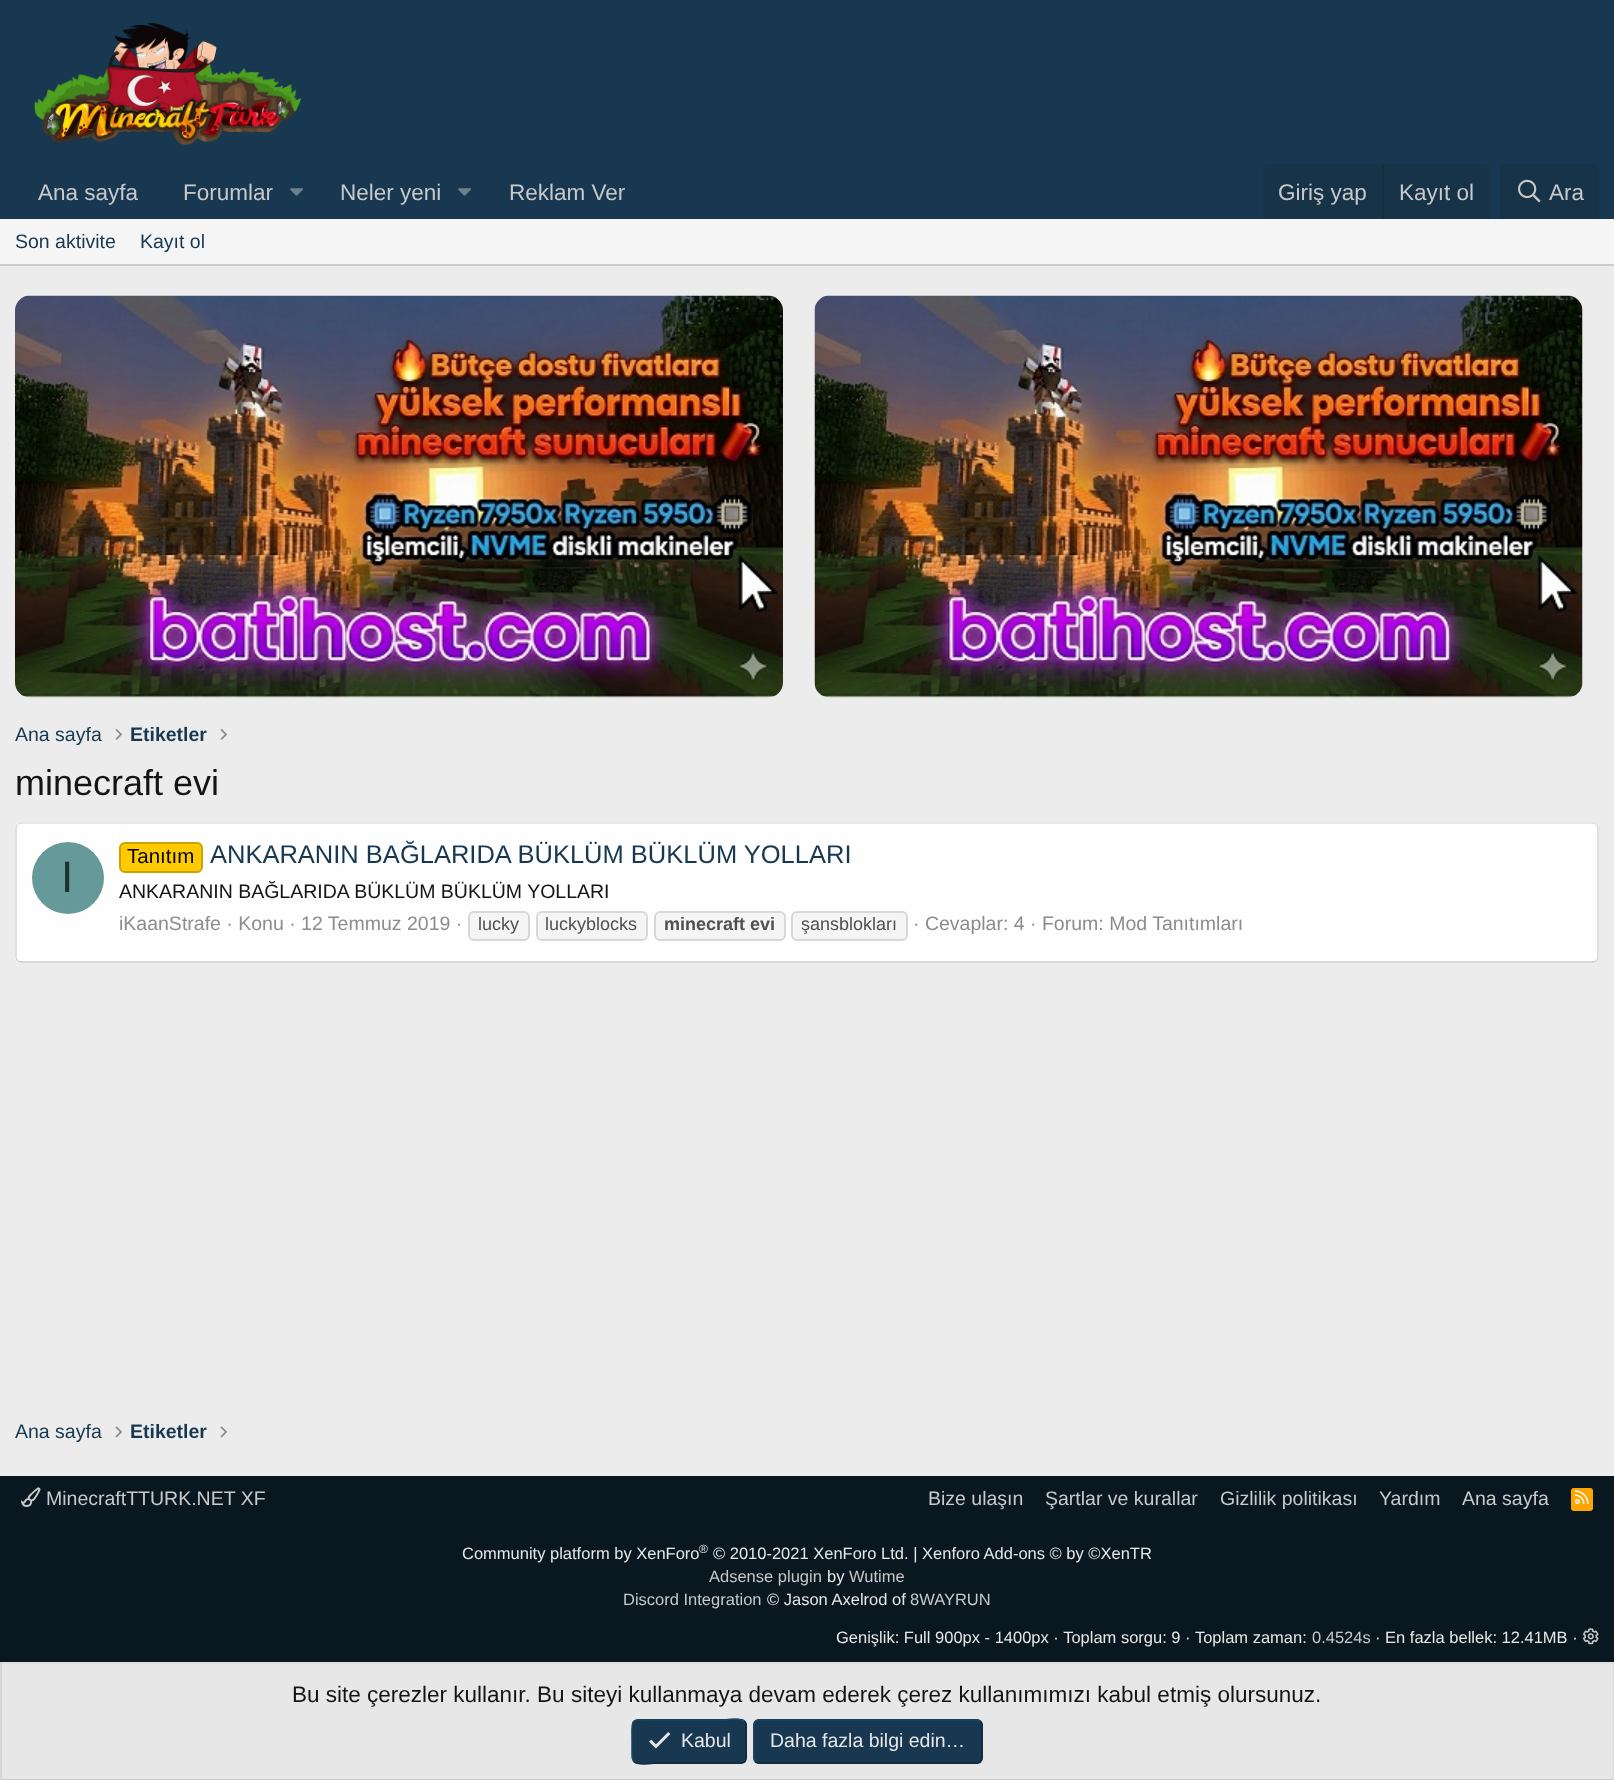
<svg xmlns="http://www.w3.org/2000/svg" width="1614" height="1780" viewBox="0 0 1614 1780">
  <style>
    .t1 { font: 22.5px Liberation Sans; fill: #c8c9ca; }
    .t2 { font: 19.5px Liberation Sans; fill: #173850; }
    .t3 { font: bold 19.5px Liberation Sans; fill: #173850; }
    .t4 { font: 36px Liberation Sans; fill: #141414; }
    .t5 { font: 44px Liberation Sans; fill: #1f2e2e; }
    .t6 { font: 20.5px Liberation Sans; fill: #000; }
    .t7 { font: 25.5px Liberation Sans; fill: #173850; }
    .t8 { font: 19.5px Liberation Sans; fill: #141414; }
    .t9 { font: 19.5px Liberation Sans; fill: #8c8c8c; }
    .t10 { font: 18px Liberation Sans; fill: #505050; }
    .t11 { font: bold 18px Liberation Sans; fill: #505050; }
    .t12 { font: 19.5px Liberation Sans; fill: #c8c9ca; }
    .t13 { font: 16.5px Liberation Sans; fill: #e7e7e7; }
    .t14 { font: 12px Liberation Sans; fill: #e7e7e7; }
    .t15 { font: 16.5px Liberation Sans; fill: #c8c9ca; }
    .t16 { font: 22.5px Liberation Sans; fill: #141414; }
    .t17 { font: 19.5px Liberation Sans; fill: #e7e7e7; }
  </style>
  <rect width="100%" height="100%" fill="#ececec"/>
  <rect x="0" y="0" width="1614" height="219" fill="#173850"/>
  <image x="34" y="22" width="268" height="124" href="images/1.png"/>
  <text x="38" y="200" class="t1">Ana sayfa</text>
  <text x="183" y="200" class="t1">Forumlar</text>
  <image x="290" y="188" width="13" height="8" href="images/2.png"/>
  <text x="340" y="200" class="t1">Neler yeni</text>
  <image x="458" y="188" width="13" height="8" href="images/2.png"/>
  <text x="509" y="200" class="t1">Reklam Ver</text>
  <path d="M1269 164H1484C1487.5 164 1490 166.5 1490 170V219H1263V170C1263 166.5 1265.5 164 1269 164Z" fill="#173347"/>
  <text x="1278" y="200" class="t1">Giriş yap</text>
  <rect x="1382" y="164" width="2" height="55" fill="#172e3f"/>
  <text x="1399" y="200" class="t1">Kayıt ol</text>
  <path d="M1506 164H1593C1596.5 164 1599 166.5 1599 170V219H1500V170C1500 166.5 1502.5 164 1506 164Z" fill="#173347"/>
  <image x="1518" y="179" width="23" height="24" href="images/3.png"/>
  <text x="1549" y="200" class="t1">Ara</text>
  <rect x="0" y="219" width="1614" height="45" fill="#f5f5f5"/>
  <rect x="0" y="264" width="1614" height="2" fill="#cbcbcb"/>
  <text x="15" y="248" class="t2">Son aktivite</text>
  <text x="140" y="248" class="t2">Kayıt ol</text>
  <image x="15" y="295" width="768" height="403" href="images/4.png"/>
  <image x="814" y="295" width="769" height="403" href="images/5.png"/>
  <text x="15" y="741" class="t2">Ana sayfa</text>
  <image x="115" y="729" width="7" height="11" href="images/6.png"/>
  <text x="130" y="741" class="t3">Etiketler</text>
  <image x="220" y="729" width="7" height="11" href="images/6.png"/>
  <text x="15" y="795" class="t4">minecraft evi</text>
  <rect x="15" y="822" width="1584" height="141" rx="6" fill="#fefefe"/>
  <path d="M17.5 824.5C18.5 823.5 19.5 823 21 823H1593C1594.5 823 1595.5 823.5 1596.5 824.5" fill="none" stroke="#dfdfdf" stroke-width="1.5"/>
  <path d="M1596.5 824.5C1597.5 825.5 1598 826.5 1598 828V957C1598 958.5 1597.5 959.5 1596.5 960.5" fill="none" stroke="#d8d8d8" stroke-width="1.5"/>
  <path d="M1596.5 960.5C1595.5 961.5 1594.5 962 1593 962H21C19.5 962 18.5 961.5 17.5 960.5" fill="none" stroke="#cbcbcb" stroke-width="1.5"/>
  <path d="M17.5 960.5C16.5 959.5 16 958.5 16 957V828C16 826.5 16.5 825.5 17.5 824.5" fill="none" stroke="#d8d8d8" stroke-width="1.5"/>
  <circle cx="68" cy="878" r="36" fill="#699"/>
  <text x="61" y="892" class="t5">I</text>
  <rect x="120" y="843" width="82" height="29" rx="5" fill="#ffcb00" stroke="#cca200" stroke-width="2"/>
  <text x="127" y="863" class="t6">Tanıtım</text>
  <text x="210" y="863" class="t7">ANKARANIN BAĞLARIDA BÜKLÜM BÜKLÜM YOLLARI</text>
  <text x="119" y="898" class="t8">ANKARANIN BAĞLARIDA BÜKLÜM BÜKLÜM YOLLARI</text>
  <text x="119" y="930" class="t9">iKaanStrafe · Konu · 12 Temmuz 2019 ·</text>
  <rect x="469" y="912" width="60" height="28" rx="5" fill="#f5f5f5" stroke="#d8d8d8" stroke-width="2"/>
  <text x="478" y="930" class="t10">lucky</text>
  <rect x="537" y="912" width="110" height="28" rx="5" fill="#f5f5f5" stroke="#d8d8d8" stroke-width="2"/>
  <text x="545" y="930" class="t10">luckyblocks</text>
  <rect x="655" y="912" width="130" height="28" rx="5" fill="#f5f5f5" stroke="#d8d8d8" stroke-width="2"/>
  <text x="664" y="930" class="t11">minecraft evi</text>
  <rect x="792" y="912" width="115" height="28" rx="5" fill="#f5f5f5" stroke="#d8d8d8" stroke-width="2"/>
  <text x="801" y="930" class="t10">şansblokları</text>
  <text x="913" y="930" class="t9">· Cevaplar: 4 · Forum: Mod Tanıtımları</text>
  <text x="15" y="1438" class="t2">Ana sayfa</text>
  <image x="115" y="1426" width="7" height="12" href="images/7.png"/>
  <text x="130" y="1438" class="t3">Etiketler</text>
  <image x="220" y="1426" width="7" height="12" href="images/7.png"/>
  <rect x="0" y="1476" width="1614" height="186" fill="#091720"/>
  <image x="21" y="1487" width="20" height="20" href="images/8.png"/>
  <text x="46" y="1505" class="t12">MinecraftTTURK.NET XF</text>
  <text x="928" y="1505" class="t12">Bize ulaşın</text>
  <text x="1045" y="1505" class="t12">Şartlar ve kurallar</text>
  <text x="1220" y="1505" class="t12">Gizlilik politikası</text>
  <text x="1379" y="1505" class="t12">Yardım</text>
  <text x="1462" y="1505" class="t12">Ana sayfa</text>
  <rect x="1571" y="1488" width="22" height="23" rx="3" fill="#ffa500"/>
  <image x="1575" y="1490" width="14" height="14" href="images/9.png"/>
  <text x="462" y="1559" class="t13">Community platform by XenForo</text>
  <text x="699" y="1553" class="t14">®</text>
  <text x="713" y="1559" class="t13">© 2010-2021 XenForo Ltd. | Xenforo Add-ons © by ©XenTR</text>
  <text x="709" y="1582" class="t15">Adsense plugin</text>
  <text x="827" y="1582" class="t13">by</text>
  <text x="849" y="1582" class="t15">Wutime</text>
  <text x="623" y="1605" class="t15">Discord Integration</text>
  <text x="767" y="1605" class="t13">© Jason Axelrod of</text>
  <text x="910" y="1605" class="t15">8WAYRUN</text>
  <text x="836" y="1643" class="t13">Genişlik: Full 900px - 1400px · Toplam sorgu: 9 · Toplam zaman:</text>
  <text x="1312" y="1643" class="t15">0.4524s</text>
  <text x="1375" y="1643" class="t13">· En fazla bellek: 12.41MB ·</text>
  <image x="1583" y="1628" width="16" height="17" href="images/10.png"/>
  <rect x="2" y="1664" width="1611" height="115" fill="#e7e7e7"/>
  <rect x="0" y="1662" width="1614" height="2" fill="#dfdfdf"/>
  <rect x="1613" y="1662" width="1" height="118" fill="#d8d8d8"/>
  <rect x="0" y="1779" width="1614" height="1" fill="#cbcbcb"/>
  <rect x="0" y="1662" width="2" height="118" fill="#d8d8d8"/>
  <text x="292" y="1702" class="t16">Bu site çerezler kullanır. Bu siteyi kullanmaya devam ederek çerez kullanımımızı kabul etmiş olursunuz.</text>
  <rect x="632" y="1719" width="115" height="45" rx="6" fill="#173850"/>
  <path d="M744.5 1721.5C747 1723.5 746 1727.5 746 1730.5V1741.5C746 1766.5 750 1763 724 1763H655C654 1763 638 1766 634 1761.5" fill="none" stroke="#112a3c" stroke-width="1.5"/>
  <path d="M634 1761.5C631.5 1759.5 632 1755.5 632 1752.5V1741.5C632 1716.5 628.5 1720 655 1720H724C724.5 1720 740.5 1717 744.5 1721.5" fill="none" stroke="#1d4664" stroke-width="1.5"/>
  <image x="649" y="1732" width="22" height="17" href="images/11.png"/>
  <text x="681" y="1747" class="t17">Kabul</text>
  <rect x="753" y="1719" width="230" height="45" rx="6" fill="#173850"/>
  <path d="M980 1721.5C981 1722.5 982 1723.5 982 1725V1758C982 1759.5 981 1760.5 980 1761.5C979 1762.5 978 1763 976.5 1763H759C757.5 1763 756.5 1762.5 755.5 1761.5" fill="none" stroke="#112a3c" stroke-width="1.5"/>
  <path d="M755.5 1761.5C754.5 1760.5 754 1759.5 754 1758V1725C754 1723.5 754.5 1722.5 755.5 1721.5C756.5 1720.5 757.5 1720 759 1720H976.5C978 1720 979 1720.5 980 1721.5" fill="none" stroke="#1d4664" stroke-width="1.5"/>
  <text x="770" y="1747" class="t17">Daha fazla bilgi edin…</text>
</svg>
